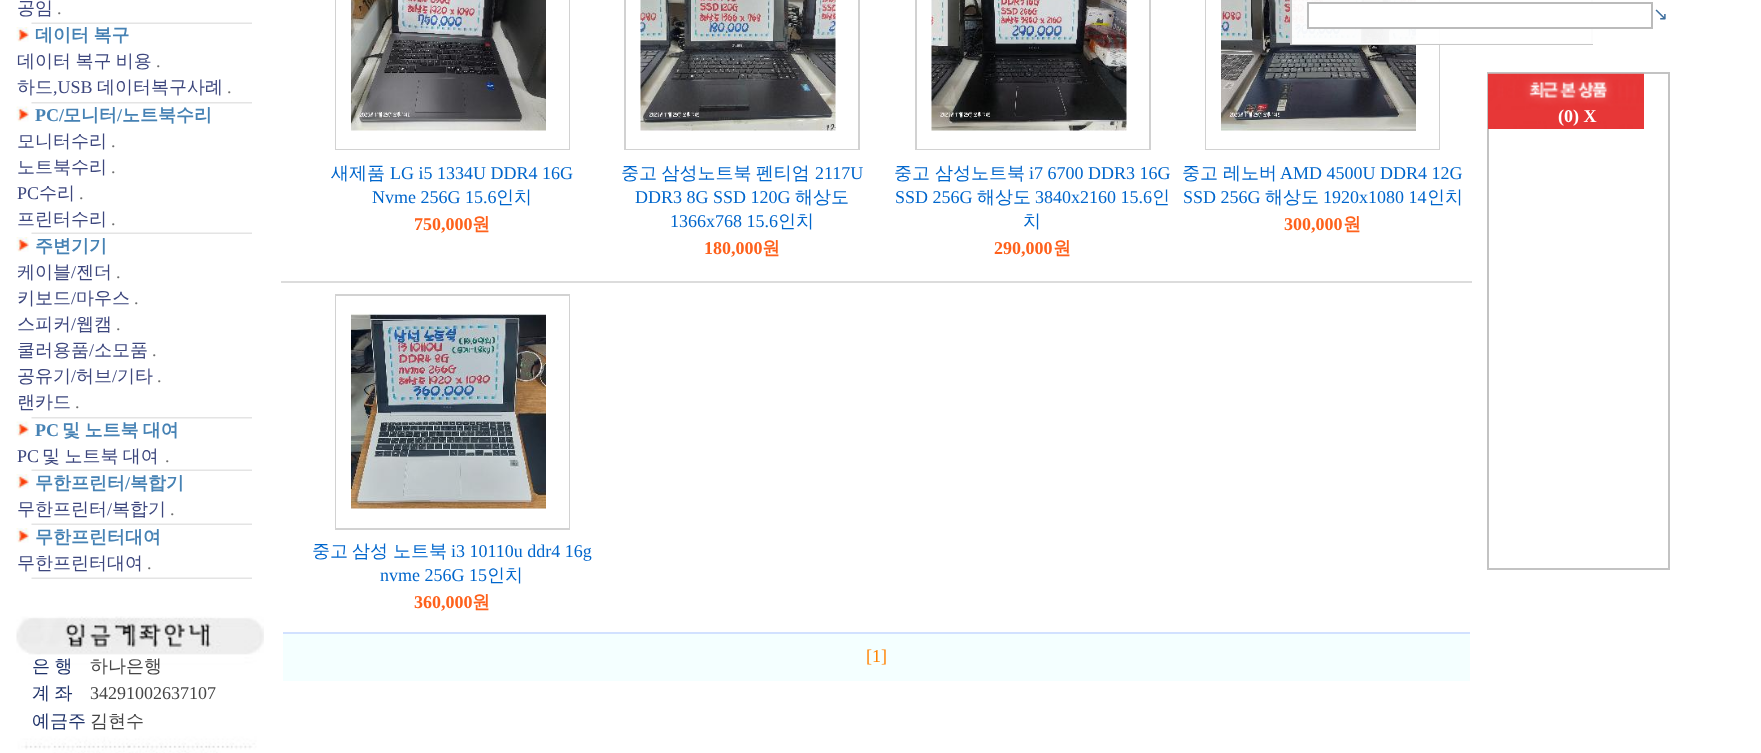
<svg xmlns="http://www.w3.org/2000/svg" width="1761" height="753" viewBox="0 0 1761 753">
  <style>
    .t1 { font: 500 18px WenQuanYi Zen Hei; fill: #3c467d; }
    .t2 { font: 18px Liberation Serif; fill: #6e6e6e; }
    .t3 { font: bold 18px WenQuanYi Zen Hei; fill: #4682b4; }
    .t4 { font: 18px Liberation Serif; fill: #3c467d; }
    .t5 { font: bold 18px Liberation Serif; fill: #4682b4; }
    .t6 { font: 500 18px WenQuanYi Zen Hei; fill: #1e3269; }
    .t7 { font: 500 18px WenQuanYi Zen Hei; fill: #464646; }
    .t8 { font: 18px Liberation Serif; fill: #464646; }
    .t9 { font: 500 18px WenQuanYi Zen Hei; fill: #06c; }
    .t10 { font: 18px Liberation Serif; fill: #06c; }
    .t11 { font: bold 18px Liberation Serif; fill: #fe611c; }
    .t12 { font: bold 18px WenQuanYi Zen Hei; fill: #fe611c; }
    .t13 { font: 18px Liberation Serif; fill: #ff8200; }
    .t14 { font: 18px DejaVu Sans; fill: #3d6e9e; }
    .t15 { font: bold 18px Liberation Serif; fill: #fff; }
  </style>
  <rect width="100%" height="100%" fill="#fff"/>
  <text x="17" y="14" class="t1">공임</text>
  <text x="57" y="14" class="t2">.</text>
  <image x="31" y="22" width="221" height="2" href="images/1.png"/>
  <image x="16" y="27" width="13" height="15" href="images/2.png"/>
  <text x="35" y="41" word-spacing="-1" class="t3">데이터 복구</text>
  <text x="17" y="67" word-spacing="-1" class="t1">데이터 복구 비용</text>
  <text x="156" y="67" class="t2">.</text>
  <text x="17" y="93" class="t1">하드</text>
  <text x="53" y="93" class="t4">,USB</text>
  <text x="97" y="93" class="t1">데이터복구사례</text>
  <text x="227" y="93" class="t2">.</text>
  <image x="31" y="102" width="221" height="2" href="images/3.png"/>
  <image x="16" y="106" width="13" height="16" href="images/4.png"/>
  <text x="35" y="121" class="t5">PC/</text>
  <text x="63" y="121" class="t3">모니터</text>
  <text x="117" y="121" class="t5">/</text>
  <text x="122" y="121" class="t3">노트북수리</text>
  <text x="17" y="147" class="t1">모니터수리</text>
  <text x="111" y="147" class="t2">.</text>
  <text x="17" y="173" class="t1">노트북수리</text>
  <text x="111" y="173" class="t2">.</text>
  <text x="17" y="199" class="t4">PC</text>
  <text x="39" y="199" class="t1">수리</text>
  <text x="79" y="199" class="t2">.</text>
  <text x="17" y="225" class="t1">프린터수리</text>
  <text x="111" y="225" class="t2">.</text>
  <image x="31" y="232" width="221" height="2" href="images/1.png"/>
  <image x="16" y="237" width="13" height="15" href="images/2.png"/>
  <text x="35" y="252" class="t3">주변기기</text>
  <text x="17" y="278" class="t1">케이블</text>
  <text x="71" y="278" class="t4">/</text>
  <text x="76" y="278" class="t1">젠더</text>
  <text x="116" y="278" class="t2">.</text>
  <text x="17" y="304" class="t1">키보드</text>
  <text x="71" y="304" class="t4">/</text>
  <text x="76" y="304" class="t1">마우스</text>
  <text x="134" y="304" class="t2">.</text>
  <text x="17" y="330" class="t1">스피커</text>
  <text x="71" y="330" class="t4">/</text>
  <text x="76" y="330" class="t1">웹캠</text>
  <text x="116" y="330" class="t2">.</text>
  <text x="17" y="356" class="t1">쿨러용품</text>
  <text x="89" y="356" class="t4">/</text>
  <text x="94" y="356" class="t1">소모품</text>
  <text x="152" y="356" class="t2">.</text>
  <text x="17" y="382" class="t1">공유기</text>
  <text x="71" y="382" class="t4">/</text>
  <text x="76" y="382" class="t1">허브</text>
  <text x="112" y="382" class="t4">/</text>
  <text x="117" y="382" class="t1">기타</text>
  <text x="157" y="382" class="t2">.</text>
  <text x="17" y="408" class="t1">랜카드</text>
  <text x="75" y="408" class="t2">.</text>
  <image x="31" y="417" width="221" height="2" href="images/3.png"/>
  <image x="16" y="421" width="13" height="16" href="images/4.png"/>
  <text x="35" y="436" class="t5">PC</text>
  <text x="62" y="436" word-spacing="-1" class="t3">및 노트북 대여</text>
  <text x="17" y="462" class="t4">PC</text>
  <text x="42" y="462" word-spacing="-1" class="t1">및 노트북 대여</text>
  <text x="165" y="462" class="t2">.</text>
  <image x="31" y="469" width="221" height="2" href="images/1.png"/>
  <image x="16" y="474" width="13" height="15" href="images/2.png"/>
  <text x="35" y="489" class="t3">무한프린터</text>
  <text x="125" y="489" class="t5">/</text>
  <text x="130" y="489" class="t3">복합기</text>
  <text x="17" y="515" class="t1">무한프린터</text>
  <text x="107" y="515" class="t4">/</text>
  <text x="112" y="515" class="t1">복합기</text>
  <text x="170" y="515" class="t2">.</text>
  <image x="31" y="523" width="221" height="2" href="images/1.png"/>
  <image x="16" y="528" width="13" height="15" href="images/2.png"/>
  <text x="35" y="543" class="t3">무한프린터대여</text>
  <text x="17" y="569" class="t1">무한프린터대여</text>
  <text x="147" y="569" class="t2">.</text>
  <image x="31" y="577" width="221" height="2" href="images/1.png"/>
  <image x="16" y="616" width="248" height="137" href="images/5.png"/>
  <text x="32" y="672" word-spacing="-1" class="t6">은 행</text>
  <text x="90" y="672" class="t7">하나은행</text>
  <text x="32" y="699" word-spacing="-1" class="t6">계 좌</text>
  <text x="90" y="699" class="t8">34291002637107</text>
  <text x="32" y="727" class="t6">예금주</text>
  <text x="90" y="727" class="t7">김현수</text>
  <rect x="335" y="0" width="235" height="150" fill="#d2d2d2"/>
  <rect x="336" y="0" width="233" height="149" fill="#fff"/>
  <image x="351" y="0" width="195" height="131" href="images/6.png"/>
  <text x="331" y="179" class="t9">새제품</text>
  <text x="390" y="179" class="t10">LG i5 1334U DDR4 16G</text>
  <text x="372" y="203" class="t10">Nvme 256G 15.6</text>
  <text x="496" y="203" class="t9">인치</text>
  <text x="414" y="230" class="t11">750,000</text>
  <text x="472" y="230" class="t12">원</text>
  <rect x="624" y="0" width="236" height="150" fill="#d2d2d2"/>
  <rect x="626" y="0" width="232" height="149" fill="#fff"/>
  <image x="640" y="0" width="196" height="131" href="images/7.png"/>
  <text x="621" y="179" word-spacing="-1" class="t9">중고 삼성노트북 펜티엄</text>
  <text x="815" y="179" class="t10">2117U</text>
  <text x="635" y="203" class="t10">DDR3 8G SSD 120G</text>
  <text x="795" y="203" class="t9">해상도</text>
  <text x="670" y="227" class="t10">1366x768 15.6</text>
  <text x="778" y="227" class="t9">인치</text>
  <text x="704" y="254" class="t11">180,000</text>
  <text x="762" y="254" class="t12">원</text>
  <rect x="915" y="0" width="236" height="150" fill="#d2d2d2"/>
  <rect x="917" y="0" width="232" height="149" fill="#fff"/>
  <image x="931" y="0" width="196" height="131" href="images/8.png"/>
  <text x="894" y="179" class="t9">중고</text>
  <text x="935" y="179" class="t9">삼성노트북</text>
  <text x="1029" y="179" class="t10">i7 6700 DDR3 16G</text>
  <text x="895" y="203" class="t10">SSD 256G</text>
  <text x="977" y="203" class="t9">해상도</text>
  <text x="1035" y="203" class="t10">3840x2160 15.6</text>
  <text x="1152" y="203" class="t9">인</text>
  <text x="1023" y="227" class="t9">치</text>
  <text x="994" y="254" class="t11">290,000</text>
  <text x="1053" y="254" class="t12">원</text>
  <rect x="1205" y="0" width="235" height="150" fill="#d2d2d2"/>
  <rect x="1206" y="0" width="233" height="149" fill="#fff"/>
  <image x="1221" y="0" width="195" height="131" href="images/9.png"/>
  <text x="1182" y="179" class="t9">중고</text>
  <text x="1223" y="179" class="t9">레노버</text>
  <text x="1280" y="179" class="t10">AMD 4500U DDR4 12G</text>
  <text x="1183" y="203" class="t10">SSD 256G</text>
  <text x="1265" y="203" class="t9">해상도</text>
  <text x="1323" y="203" class="t10">1920x1080 14</text>
  <text x="1427" y="203" class="t9">인치</text>
  <text x="1284" y="230" class="t11">300,000</text>
  <text x="1343" y="230" class="t12">원</text>
  <rect x="281" y="281" width="1191" height="2" fill="#dcdcdc"/>
  <rect x="335" y="294" width="235" height="236" fill="#d2d2d2"/>
  <rect x="336" y="296" width="233" height="232" fill="#fff"/>
  <image x="351" y="313" width="195" height="196" href="images/10.png"/>
  <text x="312" y="557" class="t9">중고</text>
  <text x="352" y="557" class="t9">삼성</text>
  <text x="393" y="557" class="t9">노트북</text>
  <text x="451" y="557" class="t10">i3 10110u ddr4 16g</text>
  <text x="380" y="581" class="t10">nvme 256G 15</text>
  <text x="487" y="581" class="t9">인치</text>
  <text x="414" y="608" class="t11">360,000</text>
  <text x="472" y="608" class="t12">원</text>
  <rect x="283" y="634" width="1187" height="47" fill="#f4ffff"/>
  <rect x="281" y="632" width="1191" height="2" fill="#d2e1ff"/>
  <rect x="1470" y="632" width="2" height="2" fill="#fff"/>
  <rect x="281" y="632" width="2" height="2" fill="#fff"/>
  <text x="866" y="662" class="t13">[1]</text>
  <rect x="1291" y="-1" width="301" height="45" fill="none" stroke="#c8c8c8" stroke-width="2"/>
  <rect x="1292" y="0" width="301" height="44" fill="#fffffff2"/>
  <rect x="1309" y="4" width="284" height="23" fill="#fffffff2"/>
  <rect x="1308" y="3" width="344" height="25" fill="none" stroke="#bbb" stroke-width="2"/>
  <text x="1653" y="20" class="t14">↘</text>
  <rect x="1488" y="73" width="181" height="496" fill="none" stroke="#c3c3c3" stroke-width="2"/>
  <image x="1488" y="73" width="156" height="56" href="images/11.png"/>
  <text x="1558" y="122" class="t15">(0) X</text>
</svg>
